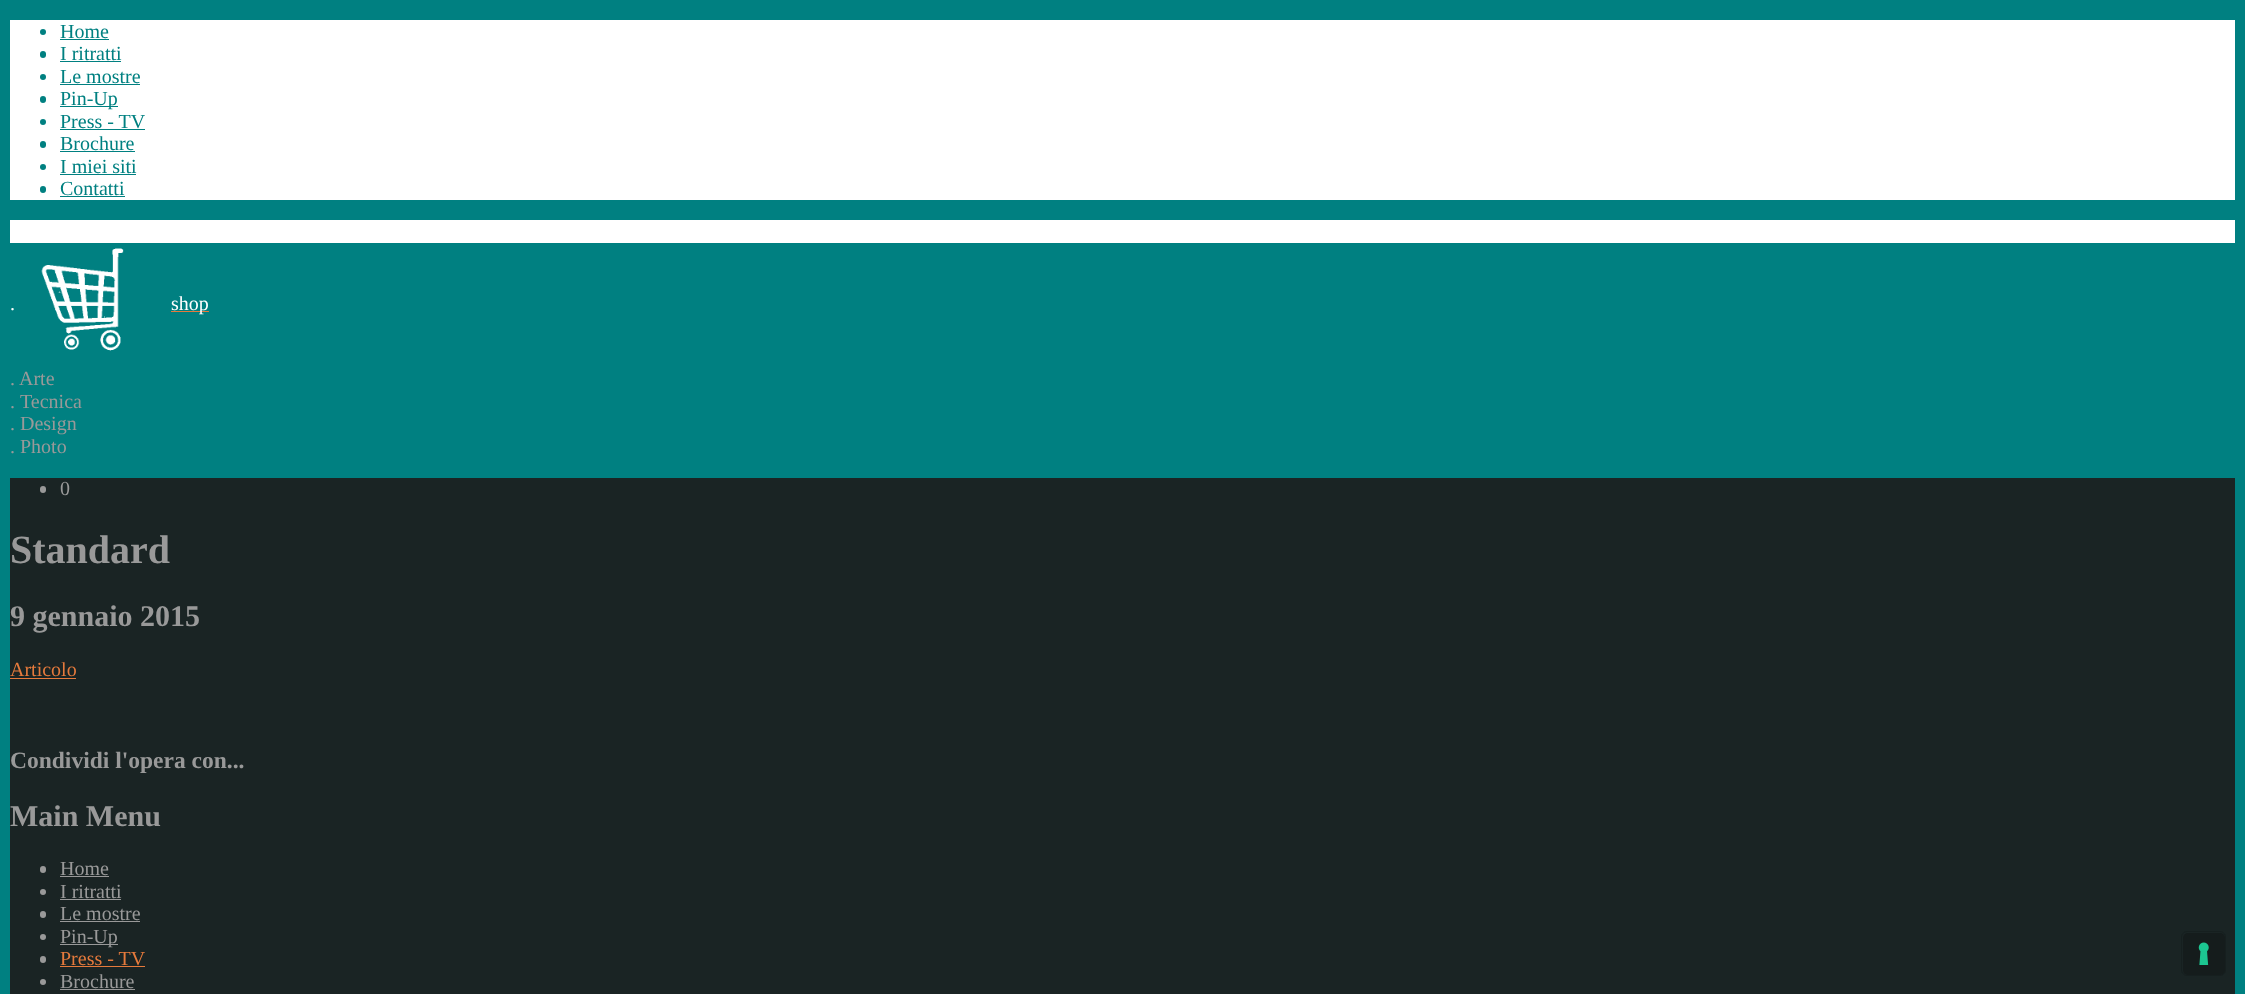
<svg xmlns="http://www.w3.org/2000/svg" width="2245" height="994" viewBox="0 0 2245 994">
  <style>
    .t1 { font: 20px Liberation Serif; fill: #008081; }
    .t2 { font: 20px Liberation Serif; fill: #fff; }
    .t3 { font: 20px Liberation Serif; fill: #999; }
    .t4 { font: bold 40px Liberation Serif; fill: #999; }
    .t5 { font: bold 30px Liberation Serif; fill: #999; }
    .t6 { font: 20px Liberation Serif; fill: #e57a3c; }
    .t7 { font: bold 23.5px Liberation Serif; fill: #999; }
  </style>
  <rect width="100%" height="100%" fill="#008081"/>
  <rect x="10" y="20" width="2225" height="180" fill="#fff"/>
  <circle cx="43" cy="32" r="3" fill="#008081"/>
  <text x="60" y="38" class="t1">Home</text>
  <rect x="60" y="39" width="49" height="1" fill="#008081"/>
  <rect x="40" y="51" width="6" height="7" rx="3" fill="#008081"/>
  <text x="60" y="60" class="t1">I ritratti</text>
  <rect x="60" y="61" width="61" height="1" fill="#008081"/>
  <circle cx="43" cy="77" r="3" fill="#008081"/>
  <text x="60" y="83" class="t1">Le mostre</text>
  <rect x="60" y="84" width="80" height="1" fill="#008081"/>
  <rect x="40" y="96" width="6" height="7" rx="3" fill="#008081"/>
  <rect x="60" y="106" width="58" height="1" fill="#008081"/>
  <text x="60" y="105" class="t1">Pin-Up</text>
  <circle cx="43" cy="122" r="3" fill="#008081"/>
  <text x="60" y="128" class="t1">Press - TV</text>
  <rect x="60" y="129" width="85" height="1" fill="#008081"/>
  <rect x="40" y="141" width="6" height="7" rx="3" fill="#008081"/>
  <text x="60" y="150" class="t1">Brochure</text>
  <rect x="60" y="151" width="75" height="1" fill="#008081"/>
  <circle cx="43" cy="167" r="3" fill="#008081"/>
  <text x="60" y="173" class="t1">I miei siti</text>
  <rect x="60" y="174" width="76" height="1" fill="#008081"/>
  <rect x="40" y="186" width="6" height="7" rx="3" fill="#008081"/>
  <text x="60" y="195" class="t1">Contatti</text>
  <rect x="60" y="196" width="65" height="1" fill="#008081"/>
  <rect x="10" y="220" width="2225" height="23" fill="#fff"/>
  <text x="10" y="310" class="t2">.</text>
  <image x="41" y="248" width="83" height="103" href="images/1.png"/>
  <rect x="171" y="311" width="38" height="1" fill="#e57a3c"/>
  <text x="171" y="310" class="t2">shop</text>
  <text x="10" y="385" class="t3">.</text>
  <text x="19" y="385" class="t3">Arte</text>
  <text x="10" y="408" class="t3">.</text>
  <text x="20" y="408" class="t3">Tecnica</text>
  <text x="10" y="430" class="t3">. Design</text>
  <text x="10" y="453" class="t3">. Photo</text>
  <rect x="10" y="478" width="2225" height="516" fill="#1a2424"/>
  <rect x="40" y="486" width="6" height="7" rx="3" fill="#999"/>
  <text x="60" y="495" class="t3">0</text>
  <text x="10" y="563" class="t4">Standard</text>
  <text x="10" y="626" class="t5">9 gennaio 2015</text>
  <text x="10" y="676" class="t6">Articolo</text>
  <rect x="10" y="678" width="66" height="1" fill="#e57a3c"/>
  <text x="10" y="768" class="t7">Condividi l'opera con...</text>
  <text x="10" y="826" class="t5">Main Menu</text>
  <rect x="40" y="866" width="6" height="7" rx="3" fill="#999"/>
  <text x="60" y="875" class="t3">Home</text>
  <rect x="60" y="876" width="49" height="1" fill="#999"/>
  <circle cx="43" cy="892" r="3" fill="#999"/>
  <text x="60" y="898" class="t3">I ritratti</text>
  <rect x="60" y="899" width="61" height="1" fill="#999"/>
  <rect x="40" y="911" width="6" height="7" rx="3" fill="#999"/>
  <text x="60" y="920" class="t3">Le mostre</text>
  <rect x="60" y="921" width="80" height="1" fill="#999"/>
  <circle cx="43" cy="937" r="3" fill="#999"/>
  <rect x="60" y="944" width="58" height="1" fill="#999"/>
  <text x="60" y="943" class="t3">Pin-Up</text>
  <rect x="40" y="956" width="6" height="7" rx="3" fill="#999"/>
  <text x="60" y="965" class="t6">Press - TV</text>
  <rect x="60" y="966" width="85" height="1" fill="#e57a3c"/>
  <circle cx="43" cy="982" r="3" fill="#999"/>
  <text x="60" y="988" class="t3">Brochure</text>
  <rect x="60" y="989" width="75" height="1" fill="#999"/>
  <rect x="2181.5" y="931.5" width="44" height="44" rx="5.5" fill="none" stroke="#161f1f"/>
  <rect x="2183" y="933" width="42" height="42" rx="5" fill="#151c1c"/>
  <image x="2198" y="942" width="11" height="23" href="images/2.png"/>
</svg>
